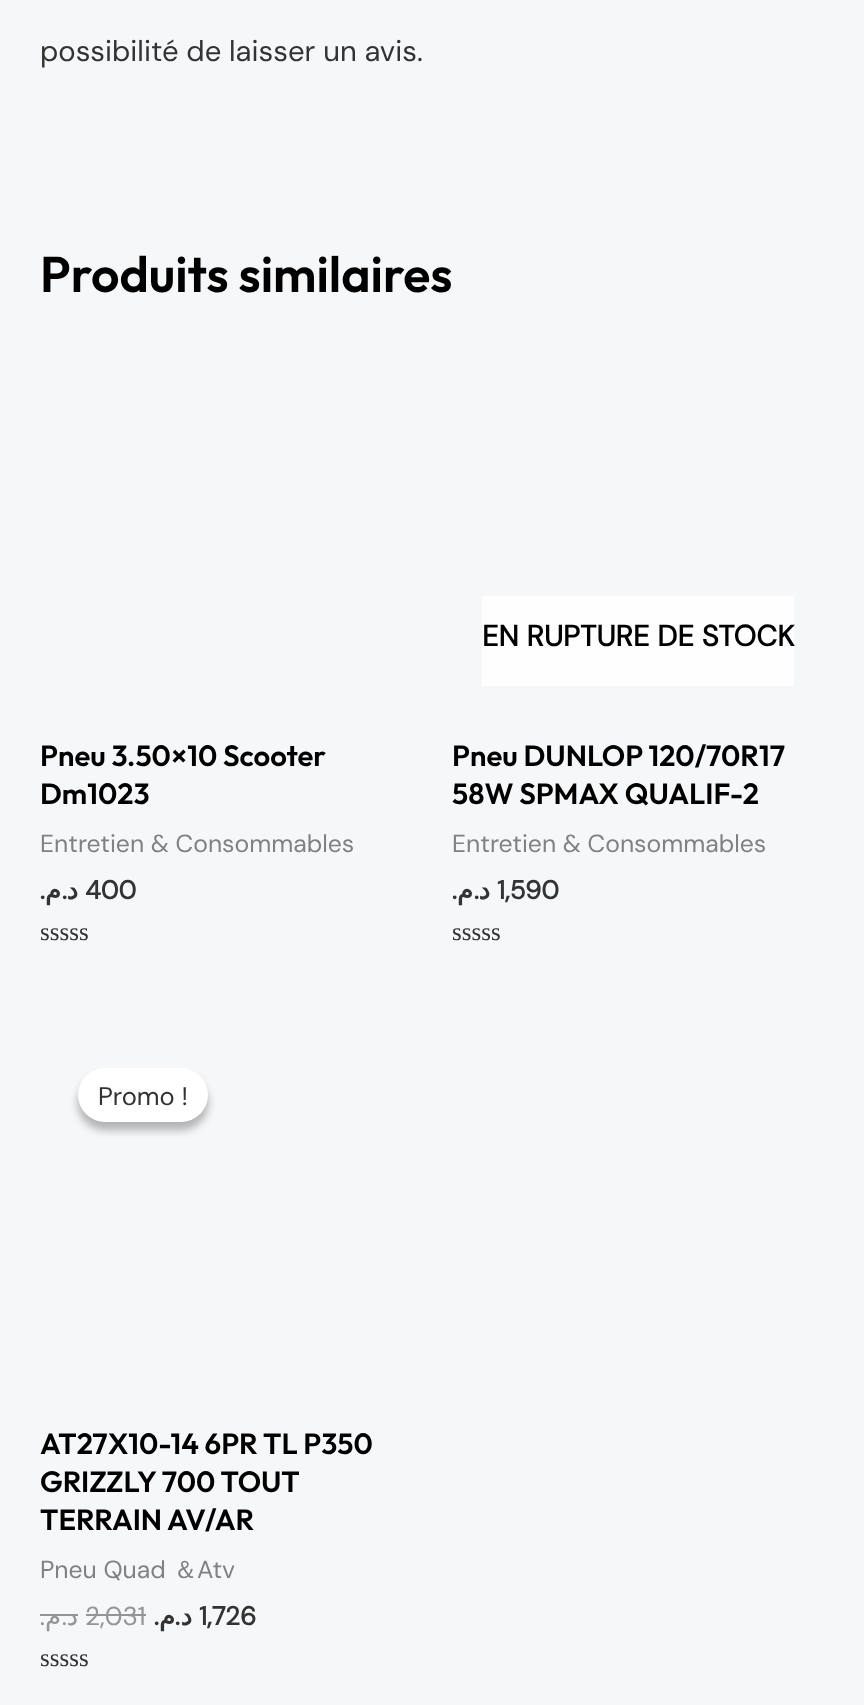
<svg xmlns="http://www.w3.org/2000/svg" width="864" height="1705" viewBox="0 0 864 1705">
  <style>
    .t1 { font: 29.25px DM Sans; fill: #333; }
    .t2 { font: 600 50px Outfit; fill: #000; }
    .t3 { font: 600 29.25px Outfit; fill: #000; }
    .t4 { font: 24.75px DM Sans; fill: #818182; }
    .t5 { font: bold 26px DM Sans; direction: rtl; fill: #333; }
    .t6 { font: bold 26px DejaVu Sans; direction: rtl; fill: #333; }
    .t7 { font: bold 26px DM Sans; fill: #333; }
    .t8 { font: 25px Liberation Serif; fill: #333; }
    .t9 { font: bold 29.25px DM Sans; fill: #000; }
    .t10 { font: 25.5px DM Sans; fill: #333; }
    .t11 { font: 500 24.75px WenQuanYi Zen Hei; fill: #818182; }
    .t12 { font: 26px DM Sans; direction: rtl; fill: #949596; }
    .t13 { font: 26px DejaVu Sans; direction: rtl; fill: #949596; }
    .t14 { font: 26px DM Sans; fill: #949596; }
  </style>
  <rect width="100%" height="100%" fill="#f5f7f9"/>
  <text x="40" y="61" class="t1">possibilité de laisser un avis.</text>
  <text x="40" y="292" class="t2">Produits similaires</text>
  <text x="40" y="766" class="t3">Pneu 3.50×10 Scooter</text>
  <text x="40" y="804" class="t3">Dm1023</text>
  <text x="40" y="852" class="t4">Entretien &amp; Consommables</text>
  <text x="45" y="899" class="t5">.</text>
  <text x="61" y="899" class="t6">م</text>
  <text x="67" y="899" class="t5">.</text>
  <text x="78" y="899" class="t6">د</text>
  <text x="85" y="899" class="t7">400</text>
  <text x="40" y="940" class="t8">sssss</text>
  <rect x="482" y="596" width="312" height="90" fill="#fefefe"/>
  <text x="482" y="646" class="t9">EN RUPTURE DE STOCK</text>
  <text x="452" y="766" class="t3">Pneu DUNLOP 120/70R17</text>
  <text x="452" y="804" class="t3">58W SPMAX QUALIF-2</text>
  <text x="452" y="852" class="t4">Entretien &amp; Consommables</text>
  <text x="457" y="899" class="t5">.</text>
  <text x="473" y="899" class="t6">م</text>
  <text x="479" y="899" class="t5">.</text>
  <text x="490" y="899" class="t6">د</text>
  <text x="497" y="899" class="t7">1,590</text>
  <text x="452" y="940" class="t8">sssss</text>
  <rect x="78" y="1076" width="130" height="54" rx="27" fill="#00000026" filter="blur(4px)"/>
  <rect x="78" y="1076" width="130" height="54" rx="27" fill="#00000026" filter="blur(4px)"/>
  <rect x="78" y="1068" width="130" height="54" rx="27" fill="#fff"/>
  <text x="98" y="1105" class="t10">Promo !</text>
  <text x="40" y="1454" class="t3">AT27X10-14 6PR TL P350</text>
  <text x="40" y="1492" class="t3">GRIZZLY 700 TOUT</text>
  <text x="40" y="1530" class="t3">TERRAIN AV/AR</text>
  <text x="40" y="1578" class="t4">Pneu Quad</text>
  <text x="173" y="1578" class="t11">＆</text>
  <text x="197" y="1578" class="t4">Atv</text>
  <text x="45" y="1625" class="t12">.</text>
  <text x="61" y="1625" class="t13">م</text>
  <text x="67" y="1625" class="t12">.</text>
  <text x="78" y="1625" class="t13">د</text>
  <rect x="40" y="1614" width="38" height="2" fill="#949596"/>
  <text x="85" y="1625" class="t14">2,031</text>
  <rect x="86" y="1614" width="60" height="2" fill="#949596"/>
  <text x="159" y="1625" class="t5">.</text>
  <text x="175" y="1625" class="t6">م</text>
  <text x="180" y="1625" class="t5">.</text>
  <text x="192" y="1625" class="t6">د</text>
  <text x="199" y="1625" class="t7">1,726</text>
  <text x="40" y="1666" class="t8">sssss</text>
</svg>
